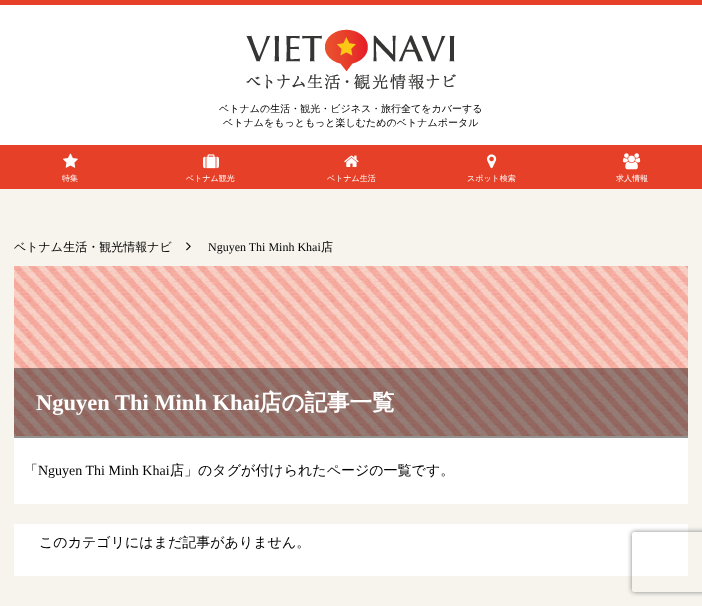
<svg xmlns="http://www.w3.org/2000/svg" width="702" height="606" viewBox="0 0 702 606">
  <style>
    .t1 { font: 500 10px WenQuanYi Zen Hei; fill: #000; }
    .t2 { font: 500 8px WenQuanYi Zen Hei; fill: #fff; }
    .t3 { font: 500 12px WenQuanYi Zen Hei; fill: #000; }
    .t4 { font: 12px Liberation Serif; fill: #000; }
    .t5 { font: bold 22.5px Liberation Serif; fill: #fff; }
    .t6 { font: bold 22.5px WenQuanYi Zen Hei; fill: #fff; }
    .t7 { font: 500 14px WenQuanYi Zen Hei; fill: #000; }
    .t8 { font: 14px Liberation Serif; fill: #000; }
  </style>
  <defs>
    <clipPath id="clip1"><path d="M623 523H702V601H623ZM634 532H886C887 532 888 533 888 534V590C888 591 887 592 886 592H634C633 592 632 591 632 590V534C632 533 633 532 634 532Z" clip-rule="evenodd"/></clipPath>
  </defs>
  <rect width="100%" height="100%" fill="#f6f4ed"/>
  <rect x="0" y="5" width="702" height="140" fill="#fff"/>
  <rect x="0" y="0" width="702" height="5" fill="#e64028"/>
  <image x="246" y="29" width="210" height="61" href="images/1.png"/>
  <text x="219" y="112" class="t1">ベトナムの生活・観光・ビジネス・旅行全てをカバーする</text>
  <text x="223" y="126" class="t1">ベトナムをもっともっと楽しむためのベトナムポータル</text>
  <rect x="0" y="145" width="702" height="44" fill="#e64028"/>
  <image x="63" y="153" width="15" height="15" href="images/2.png"/>
  <text x="62" y="181" class="t2">特集</text>
  <image x="203" y="154" width="16" height="15" href="images/3.png"/>
  <text x="186" y="181" class="t2">ベトナム観光</text>
  <image x="344" y="155" width="15" height="12" href="images/4.png"/>
  <text x="327" y="181" class="t2">ベトナム生活</text>
  <image x="487" y="154" width="10" height="15" href="images/5.png"/>
  <text x="467" y="181" class="t2">スポット検索</text>
  <image x="623" y="153" width="18" height="17" href="images/6.png"/>
  <text x="616" y="181" class="t2">求人情報</text>
  <text x="14" y="251" class="t3">ベトナム生活・観光情報ナビ</text>
  <image x="186" y="242" width="5" height="9" href="images/7.png"/>
  <text x="208" y="251" class="t4">Nguyen Thi Minh Khai</text>
  <text x="321" y="251" class="t3">店</text>
  <image x="14" y="266" width="674" height="170" href="images/8.png"/>
  <rect x="14" y="368" width="674" height="70" fill="#00000066"/>
  <text x="36" y="410" class="t5">Nguyen Thi Minh Khai</text>
  <text x="259" y="410" class="t6">店の記事一覧</text>
  <rect x="14" y="438" width="674" height="66" fill="#fff"/>
  <text x="24" y="475" class="t7">「</text>
  <text x="38" y="475" class="t8">Nguyen Thi Minh Khai</text>
  <text x="170" y="475" class="t7">店」のタグが付けられたページの一覧です。</text>
  <rect x="14" y="524" width="674" height="52" fill="#fff"/>
  <text x="39" y="547" class="t7">このカテゴリにはまだ記事がありません。</text>
  <g clip-path="url(#clip1)">
    <rect x="632" y="532" width="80" height="60" rx="2" fill="#808080" filter="blur(2.5px)"/>
  </g>
</svg>
